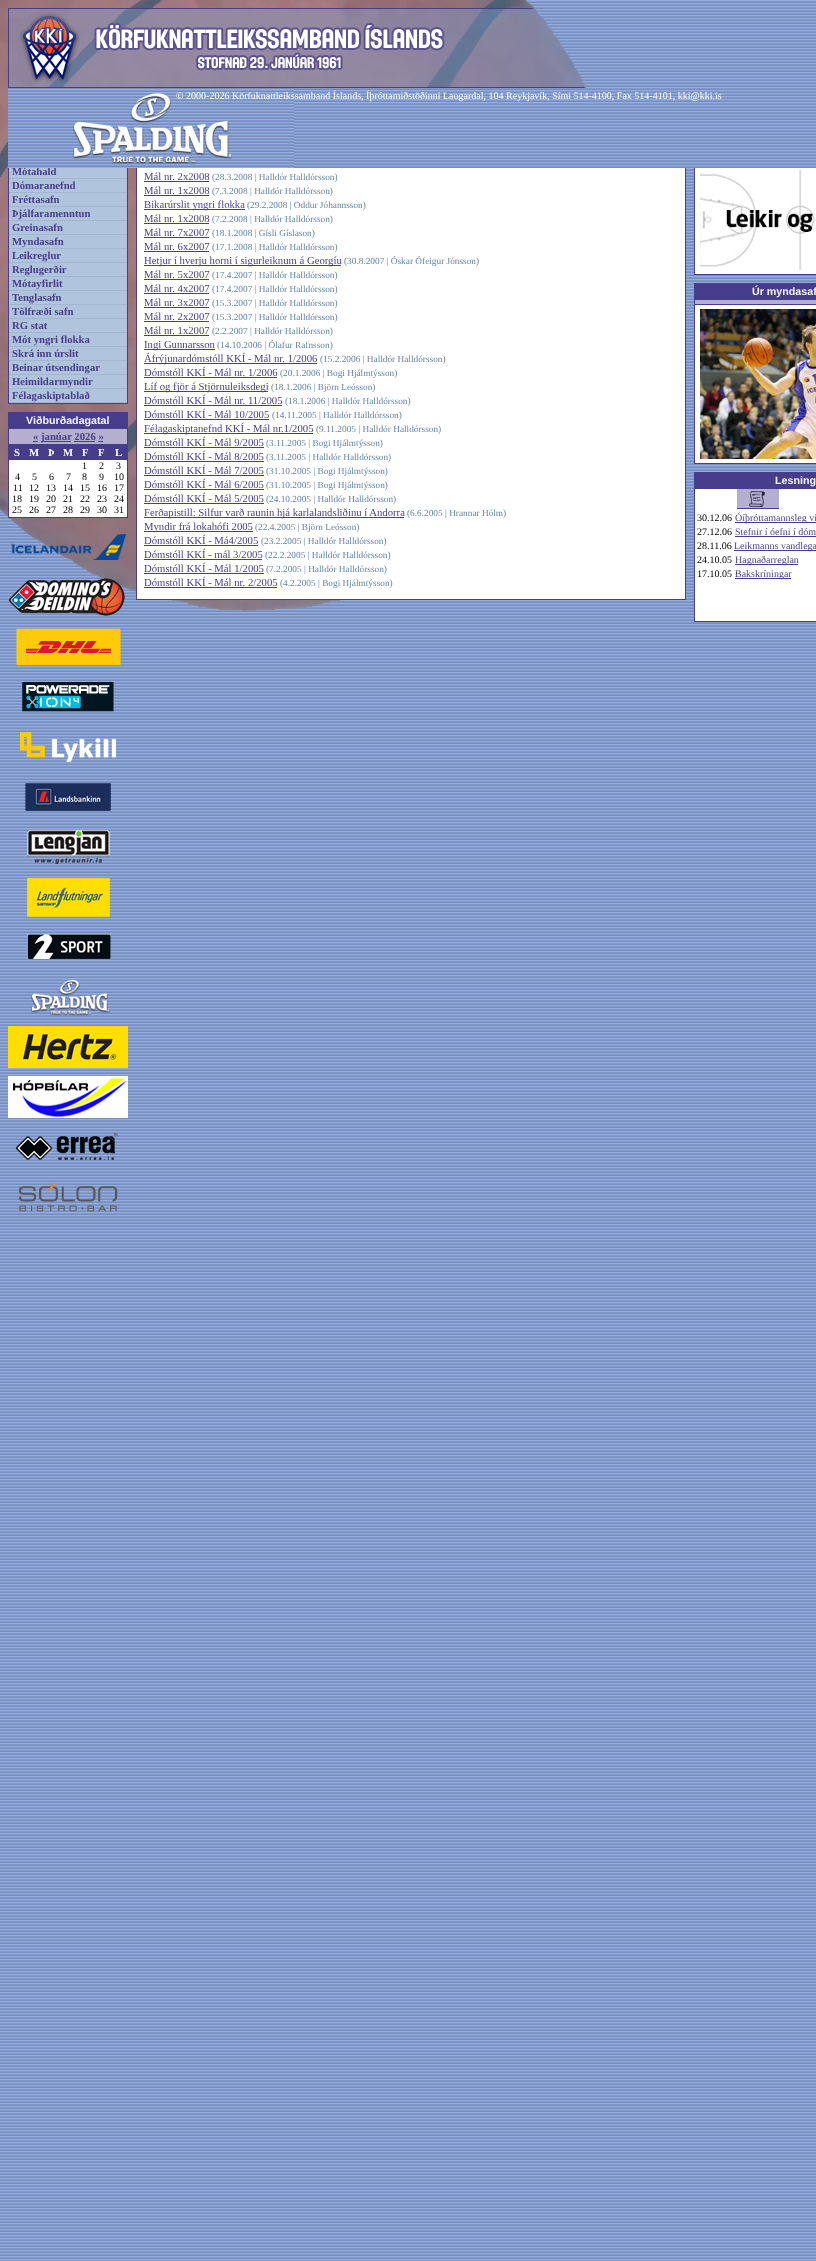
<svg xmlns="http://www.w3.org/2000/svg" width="816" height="2261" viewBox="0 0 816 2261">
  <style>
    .t1 { font: bold 10.7px Liberation Serif; fill: #483d8b; }
    .t2 { font: 10px Liberation Serif; fill: #fff; }
    .t3 { font: bold 10.7px Liberation Sans; fill: #f2f3fe; }
    .t4 { font: bold 10.7px Liberation Serif; fill: #fff; }
    .t5 { font: 10px Liberation Serif; fill: #000; }
    .t6 { font: 10.7px Liberation Serif; fill: #483d8b; }
    .t7 { font: 9.3px Liberation Serif; fill: #6282a6; }
    .t8 { font: 10px Liberation Serif; fill: #483d8b; }
  </style>
  <rect width="100%" height="100%" fill="#8199cb"/>
  <image x="0" y="0" width="816" height="2260" href="images/1.png"/>
  <image x="0" y="0" width="622" height="611" href="images/2.png"/>
  <rect x="137" y="168" width="548" height="431" fill="#fff"/>
  <rect x="136.5" y="108.5" width="549" height="491" fill="none" stroke="#483d8b"/>
  <rect x="695" y="168" width="121" height="106" fill="#fff"/>
  <rect x="694.5" y="160.5" width="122" height="114" fill="none" stroke="#483d8b"/>
  <image x="294" y="8" width="522" height="160" href="images/3.png"/>
  <image x="8" y="8" width="578" height="80" href="images/4.png"/>
  <rect x="8.5" y="108.5" width="119" height="295" fill="none" stroke="#483d8b"/>
  <rect x="9" y="168" width="118" height="10" fill="#b0c4de"/>
  <text x="12" y="175" class="t1">Mótahald</text>
  <image x="8" y="88" width="286" height="80" href="images/5.png"/>
  <text x="176" y="99" class="t2">© 2000-2026 Körfuknattleikssamband Íslands, Íþróttamiðstöðinni Laugardal, 104 Reykjavík, Sími 514-4100, Fax 514-4101, kki@kki.is</text>
  <rect x="9" y="178" width="118" height="1" fill="#a2b6d0"/>
  <rect x="9" y="179" width="118" height="13" fill="#b0c4de"/>
  <rect x="9" y="192" width="118" height="1" fill="#a2b6d0"/>
  <text x="12" y="189" class="t1">Dómaranefnd</text>
  <rect x="9" y="193" width="118" height="13" fill="#b0c4de"/>
  <rect x="9" y="206" width="118" height="1" fill="#a2b6d0"/>
  <text x="12" y="203" class="t1">Fréttasafn</text>
  <rect x="9" y="207" width="118" height="13" fill="#b0c4de"/>
  <rect x="9" y="220" width="118" height="1" fill="#a2b6d0"/>
  <text x="12" y="217" class="t1">Þjálfaramenntun</text>
  <rect x="9" y="221" width="118" height="13" fill="#b0c4de"/>
  <rect x="9" y="234" width="118" height="1" fill="#a2b6d0"/>
  <text x="12" y="231" class="t1">Greinasafn</text>
  <rect x="9" y="235" width="118" height="13" fill="#b0c4de"/>
  <rect x="9" y="248" width="118" height="1" fill="#a2b6d0"/>
  <text x="12" y="245" class="t1">Myndasafn</text>
  <rect x="9" y="249" width="118" height="13" fill="#b0c4de"/>
  <rect x="9" y="262" width="118" height="1" fill="#a2b6d0"/>
  <text x="12" y="259" class="t1">Leikreglur</text>
  <rect x="9" y="263" width="118" height="13" fill="#b0c4de"/>
  <rect x="9" y="276" width="118" height="1" fill="#a2b6d0"/>
  <text x="12" y="273" class="t1">Reglugerðir</text>
  <rect x="9" y="277" width="118" height="13" fill="#b0c4de"/>
  <rect x="9" y="290" width="118" height="1" fill="#a2b6d0"/>
  <text x="12" y="287" class="t1">Mótayfirlit</text>
  <rect x="9" y="291" width="118" height="13" fill="#b0c4de"/>
  <rect x="9" y="304" width="118" height="1" fill="#a2b6d0"/>
  <text x="12" y="301" class="t1">Tenglasafn</text>
  <rect x="9" y="305" width="118" height="13" fill="#b0c4de"/>
  <rect x="9" y="318" width="118" height="1" fill="#a2b6d0"/>
  <text x="12" y="315" class="t1">Tölfræði safn</text>
  <rect x="9" y="319" width="118" height="13" fill="#b0c4de"/>
  <rect x="9" y="332" width="118" height="1" fill="#a2b6d0"/>
  <text x="12" y="329" class="t1">RG stat</text>
  <rect x="9" y="333" width="118" height="13" fill="#b0c4de"/>
  <rect x="9" y="346" width="118" height="1" fill="#a2b6d0"/>
  <text x="12" y="343" class="t1">Mót yngri flokka</text>
  <rect x="9" y="347" width="118" height="13" fill="#b0c4de"/>
  <rect x="9" y="360" width="118" height="1" fill="#a2b6d0"/>
  <text x="12" y="357" class="t1">Skrá inn úrslit</text>
  <rect x="9" y="361" width="118" height="13" fill="#b0c4de"/>
  <rect x="9" y="374" width="118" height="1" fill="#a2b6d0"/>
  <text x="12" y="371" class="t1">Beinar útsendingar</text>
  <rect x="9" y="375" width="118" height="13" fill="#b0c4de"/>
  <rect x="9" y="388" width="118" height="1" fill="#a2b6d0"/>
  <text x="12" y="385" class="t1">Heimildarmyndir</text>
  <rect x="9" y="389" width="118" height="13" fill="#b0c4de"/>
  <rect x="9" y="402" width="118" height="1" fill="#a2b6d0"/>
  <text x="12" y="399" class="t1">Félagaskiptablað</text>
  <rect x="8" y="412" width="120" height="16" fill="#483d8b"/>
  <text x="26" y="424" class="t3">Viðburðadagatal</text>
  <rect x="9" y="460" width="118" height="57" fill="#fff"/>
  <rect x="8.5" y="428.5" width="119" height="89" fill="none" stroke="#483d8b"/>
  <rect x="9" y="429" width="118" height="15" fill="#b4afcf"/>
  <rect x="9" y="444" width="118" height="1" fill="#483d8b"/>
  <text x="33" y="440" class="t1">«</text>
  <rect x="33" y="441" width="5" height="1" fill="#483d8b"/>
  <rect x="41" y="441" width="30" height="1" fill="#483d8b"/>
  <text x="41" y="440" class="t1">janúar 2026 »</text>
  <rect x="74" y="441" width="21" height="1" fill="#483d8b"/>
  <rect x="98" y="441" width="5" height="1" fill="#483d8b"/>
  <rect x="9" y="445" width="118" height="15" fill="#483d8b"/>
  <text x="14" y="456" class="t4">S</text>
  <text x="29" y="456" class="t4">M</text>
  <text x="48" y="456" class="t4">Þ</text>
  <text x="63" y="456" class="t4">M</text>
  <text x="82" y="456" class="t4">F</text>
  <text x="98" y="456" class="t4">F</text>
  <text x="115" y="456" class="t4">L</text>
  <text x="82" y="469" class="t5">1</text>
  <text x="99" y="469" class="t5">2</text>
  <text x="116" y="469" class="t5">3</text>
  <text x="15" y="480" class="t5">4</text>
  <text x="32" y="480" class="t5">5</text>
  <text x="49" y="480" class="t5">6</text>
  <text x="66" y="480" class="t5">7</text>
  <text x="82" y="480" class="t5">8</text>
  <text x="99" y="480" class="t5">9</text>
  <text x="114" y="480" class="t5">10</text>
  <text x="13" y="491" class="t5">11</text>
  <text x="29" y="491" class="t5">12</text>
  <text x="46" y="491" class="t5">13</text>
  <text x="63" y="491" class="t5">14</text>
  <text x="80" y="491" class="t5">15</text>
  <text x="97" y="491" class="t5">16</text>
  <text x="114" y="491" class="t5">17</text>
  <text x="12" y="502" class="t5">18</text>
  <text x="29" y="502" class="t5">19</text>
  <text x="46" y="502" class="t5">20</text>
  <text x="63" y="502" class="t5">21</text>
  <text x="80" y="502" class="t5">22</text>
  <text x="97" y="502" class="t5">23</text>
  <text x="114" y="502" class="t5">24</text>
  <text x="12" y="513" class="t5">25</text>
  <text x="29" y="513" class="t5">26</text>
  <text x="46" y="513" class="t5">27</text>
  <text x="63" y="513" class="t5">28</text>
  <text x="80" y="513" class="t5">29</text>
  <text x="97" y="513" class="t5">30</text>
  <text x="114" y="513" class="t5">31</text>
  <image x="11" y="534" width="115" height="26" href="images/6.png"/>
  <image x="9" y="578" width="116" height="38" href="images/7.png"/>
  <image x="16" y="628" width="105" height="37" href="images/8.png"/>
  <image x="22" y="682" width="92" height="30" href="images/9.png"/>
  <image x="20" y="732" width="96" height="30" href="images/10.png"/>
  <image x="25" y="783" width="86" height="28" href="images/11.png"/>
  <image x="27" y="830" width="83" height="34" href="images/12.png"/>
  <image x="27" y="878" width="83" height="39" href="images/13.png"/>
  <image x="27" y="934" width="84" height="25" href="images/14.png"/>
  <image x="31" y="980" width="79" height="36" href="images/15.png"/>
  <image x="8" y="1026" width="120" height="42" href="images/16.png"/>
  <image x="8" y="1076" width="120" height="42" href="images/17.png"/>
  <image x="16" y="1133" width="102" height="27" href="images/18.png"/>
  <image x="19" y="1183" width="99" height="29" href="images/19.png"/>
  <text x="144" y="180" class="t6">Mál nr. 2x2008</text>
  <rect x="144" y="181" width="65" height="1" fill="#483d8b"/>
  <text x="212" y="180" class="t7">(28.3.2008 | Halldór Halldórsson)</text>
  <text x="144" y="194" class="t6">Mál nr. 1x2008</text>
  <rect x="144" y="195" width="65" height="1" fill="#483d8b"/>
  <text x="212" y="194" class="t7">(7.3.2008 | Halldór Halldórsson)</text>
  <rect x="144" y="209" width="101" height="1" fill="#483d8b"/>
  <text x="144" y="208" class="t6">Bikarúrslit yngri flokka</text>
  <text x="247" y="208" class="t7">(29.2.2008 | Oddur Jóhannsson)</text>
  <text x="144" y="222" class="t6">Mál nr. 1x2008</text>
  <rect x="144" y="223" width="65" height="1" fill="#483d8b"/>
  <text x="212" y="222" class="t7">(7.2.2008 | Halldór Halldórsson)</text>
  <text x="144" y="236" class="t6">Mál nr. 7x2007</text>
  <rect x="144" y="237" width="65" height="1" fill="#483d8b"/>
  <text x="212" y="236" class="t7">(18.1.2008 | Gísli Gíslason)</text>
  <text x="144" y="250" class="t6">Mál nr. 6x2007</text>
  <rect x="144" y="251" width="65" height="1" fill="#483d8b"/>
  <text x="212" y="250" class="t7">(17.1.2008 | Halldór Halldórsson)</text>
  <rect x="144" y="265" width="197" height="1" fill="#483d8b"/>
  <text x="144" y="264" class="t6">Hetjur í hverju horni í sigurleiknum á Georgíu</text>
  <text x="344" y="264" class="t7">(30.8.2007 | Óskar Ófeigur Jónsson)</text>
  <text x="144" y="278" class="t6">Mál nr. 5x2007</text>
  <rect x="144" y="279" width="65" height="1" fill="#483d8b"/>
  <text x="212" y="278" class="t7">(17.4.2007 | Halldór Halldórsson)</text>
  <text x="144" y="292" class="t6">Mál nr. 4x2007</text>
  <rect x="144" y="293" width="65" height="1" fill="#483d8b"/>
  <text x="212" y="292" class="t7">(17.4.2007 | Halldór Halldórsson)</text>
  <text x="144" y="306" class="t6">Mál nr. 3x2007</text>
  <rect x="144" y="307" width="65" height="1" fill="#483d8b"/>
  <text x="212" y="306" class="t7">(15.3.2007 | Halldór Halldórsson)</text>
  <text x="144" y="320" class="t6">Mál nr. 2x2007</text>
  <rect x="144" y="321" width="65" height="1" fill="#483d8b"/>
  <text x="212" y="320" class="t7">(15.3.2007 | Halldór Halldórsson)</text>
  <text x="144" y="334" class="t6">Mál nr. 1x2007</text>
  <rect x="144" y="335" width="65" height="1" fill="#483d8b"/>
  <text x="212" y="334" class="t7">(2.2.2007 | Halldór Halldórsson)</text>
  <rect x="144" y="349" width="71" height="1" fill="#483d8b"/>
  <text x="144" y="348" class="t6">Ingi Gunnarsson</text>
  <text x="217" y="348" class="t7">(14.10.2006 | Ólafur Rafnsson)</text>
  <rect x="144" y="363" width="173" height="1" fill="#483d8b"/>
  <text x="144" y="362" class="t6">Áfrýjunardómstóll KKÍ - Mál nr. 1/2006</text>
  <text x="320" y="362" class="t7">(15.2.2006 | Halldór Halldórsson)</text>
  <text x="144" y="376" class="t6">Dómstóll KKÍ - Mál nr. 1/2006</text>
  <rect x="144" y="377" width="133" height="1" fill="#483d8b"/>
  <text x="280" y="376" class="t7">(20.1.2006 | Bogi Hjálmtýsson)</text>
  <rect x="144" y="391" width="124" height="1" fill="#483d8b"/>
  <text x="144" y="390" class="t6">Líf og fjör á Stjörnuleiksdegi</text>
  <text x="271" y="390" class="t7">(18.1.2006 | Björn Leósson)</text>
  <text x="144" y="404" class="t6">Dómstóll KKÍ - Mál nr. 11/2005</text>
  <rect x="144" y="405" width="138" height="1" fill="#483d8b"/>
  <text x="285" y="404" class="t7">(18.1.2006 | Halldór Halldórsson)</text>
  <text x="144" y="418" class="t6">Dómstóll KKÍ - Mál 10/2005</text>
  <rect x="144" y="419" width="125" height="1" fill="#483d8b"/>
  <text x="272" y="418" class="t7">(14.11.2005 | Halldór Halldórsson)</text>
  <rect x="144" y="433" width="169" height="1" fill="#483d8b"/>
  <text x="144" y="432" class="t6">Félagaskiptanefnd KKÍ - Mál nr.1/2005</text>
  <text x="316" y="432" class="t7">(9.11.2005 | Halldór Halldórsson)</text>
  <text x="144" y="446" class="t6">Dómstóll KKÍ - Mál 9/2005</text>
  <rect x="144" y="447" width="120" height="1" fill="#483d8b"/>
  <text x="266" y="446" class="t7">(3.11.2005 | Bogi Hjálmtýsson)</text>
  <text x="144" y="460" class="t6">Dómstóll KKÍ - Mál 8/2005</text>
  <rect x="144" y="461" width="120" height="1" fill="#483d8b"/>
  <text x="266" y="460" class="t7">(3.11.2005 | Halldór Halldórsson)</text>
  <text x="144" y="474" class="t6">Dómstóll KKÍ - Mál 7/2005</text>
  <rect x="144" y="475" width="120" height="1" fill="#483d8b"/>
  <text x="266" y="474" class="t7">(31.10.2005 | Bogi Hjálmtýsson)</text>
  <text x="144" y="488" class="t6">Dómstóll KKÍ - Mál 6/2005</text>
  <rect x="144" y="489" width="120" height="1" fill="#483d8b"/>
  <text x="266" y="488" class="t7">(31.10.2005 | Bogi Hjálmtýsson)</text>
  <text x="144" y="502" class="t6">Dómstóll KKÍ - Mál 5/2005</text>
  <rect x="144" y="503" width="120" height="1" fill="#483d8b"/>
  <text x="266" y="502" class="t7">(24.10.2005 | Halldór Halldórsson)</text>
  <rect x="144" y="517" width="260" height="1" fill="#483d8b"/>
  <text x="144" y="516" class="t6">Ferðapistill: Silfur varð raunin hjá karlalandsliðinu í Andorra</text>
  <text x="407" y="516" class="t7">(6.6.2005 | Hrannar Hólm)</text>
  <rect x="144" y="531" width="109" height="1" fill="#483d8b"/>
  <text x="144" y="530" class="t6">Myndir frá lokahófi 2005</text>
  <text x="255" y="530" class="t7">(22.4.2005 | Björn Leósson)</text>
  <text x="144" y="544" class="t6">Dómstóll KKÍ - Má4/2005</text>
  <rect x="144" y="545" width="114" height="1" fill="#483d8b"/>
  <text x="261" y="544" class="t7">(23.2.2005 | Halldór Halldórsson)</text>
  <text x="144" y="558" class="t6">Dómstóll KKÍ - mál 3/2005</text>
  <rect x="144" y="559" width="118" height="1" fill="#483d8b"/>
  <text x="265" y="558" class="t7">(22.2.2005 | Halldór Halldórsson)</text>
  <text x="144" y="572" class="t6">Dómstóll KKÍ - Mál 1/2005</text>
  <rect x="144" y="573" width="120" height="1" fill="#483d8b"/>
  <text x="266" y="572" class="t7">(7.2.2005 | Halldór Halldórsson)</text>
  <text x="144" y="586" class="t6">Dómstóll KKÍ - Mál nr. 2/2005</text>
  <rect x="144" y="587" width="133" height="1" fill="#483d8b"/>
  <text x="280" y="586" class="t7">(4.2.2005 | Bogi Hjálmtýsson)</text>
  <image x="700" y="170" width="116" height="100" href="images/20.png"/>
  <rect x="694" y="283" width="122" height="16" fill="#483d8b"/>
  <text x="752" y="295" class="t3">Úr myndasaf</text>
  <rect x="695" y="305" width="121" height="158" fill="#fff"/>
  <rect x="694.5" y="299.5" width="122" height="164" fill="none" stroke="#483d8b"/>
  <rect x="695" y="300" width="121" height="4" fill="#b4afcf"/>
  <rect x="695" y="304" width="121" height="1" fill="#483d8b"/>
  <image x="700" y="309" width="116" height="150" href="images/21.png"/>
  <rect x="694" y="472" width="122" height="16" fill="#483d8b"/>
  <text x="775" y="484" class="t3">Lesning</text>
  <rect x="694.5" y="488.5" width="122" height="133" fill="#fff" stroke="#483d8b"/>
  <image x="737" y="489" width="42" height="20" href="images/22.png"/>
  <text x="697" y="521" class="t5">30.12.06</text>
  <rect x="735" y="522" width="81" height="1" fill="#483d8b"/>
  <text x="735" y="521" class="t8">Óíþróttamannsleg vi</text>
  <text x="697" y="535" class="t5">27.12.06</text>
  <text x="735" y="535" class="t8">Stefnir í óefni í dóm</text>
  <rect x="735" y="536" width="81" height="1" fill="#483d8b"/>
  <text x="697" y="549" class="t5">28.11.06</text>
  <rect x="734" y="550" width="82" height="1" fill="#483d8b"/>
  <text x="734" y="549" class="t8">Leikmanns vandlega</text>
  <text x="697" y="563" class="t5">24.10.05</text>
  <rect x="735" y="564" width="63" height="1" fill="#483d8b"/>
  <text x="735" y="563" class="t8">Hagnaðarreglan</text>
  <text x="697" y="577" class="t5">17.10.05</text>
  <rect x="735" y="578" width="56" height="1" fill="#483d8b"/>
  <text x="735" y="577" class="t8">Bakskríningar</text>
</svg>
